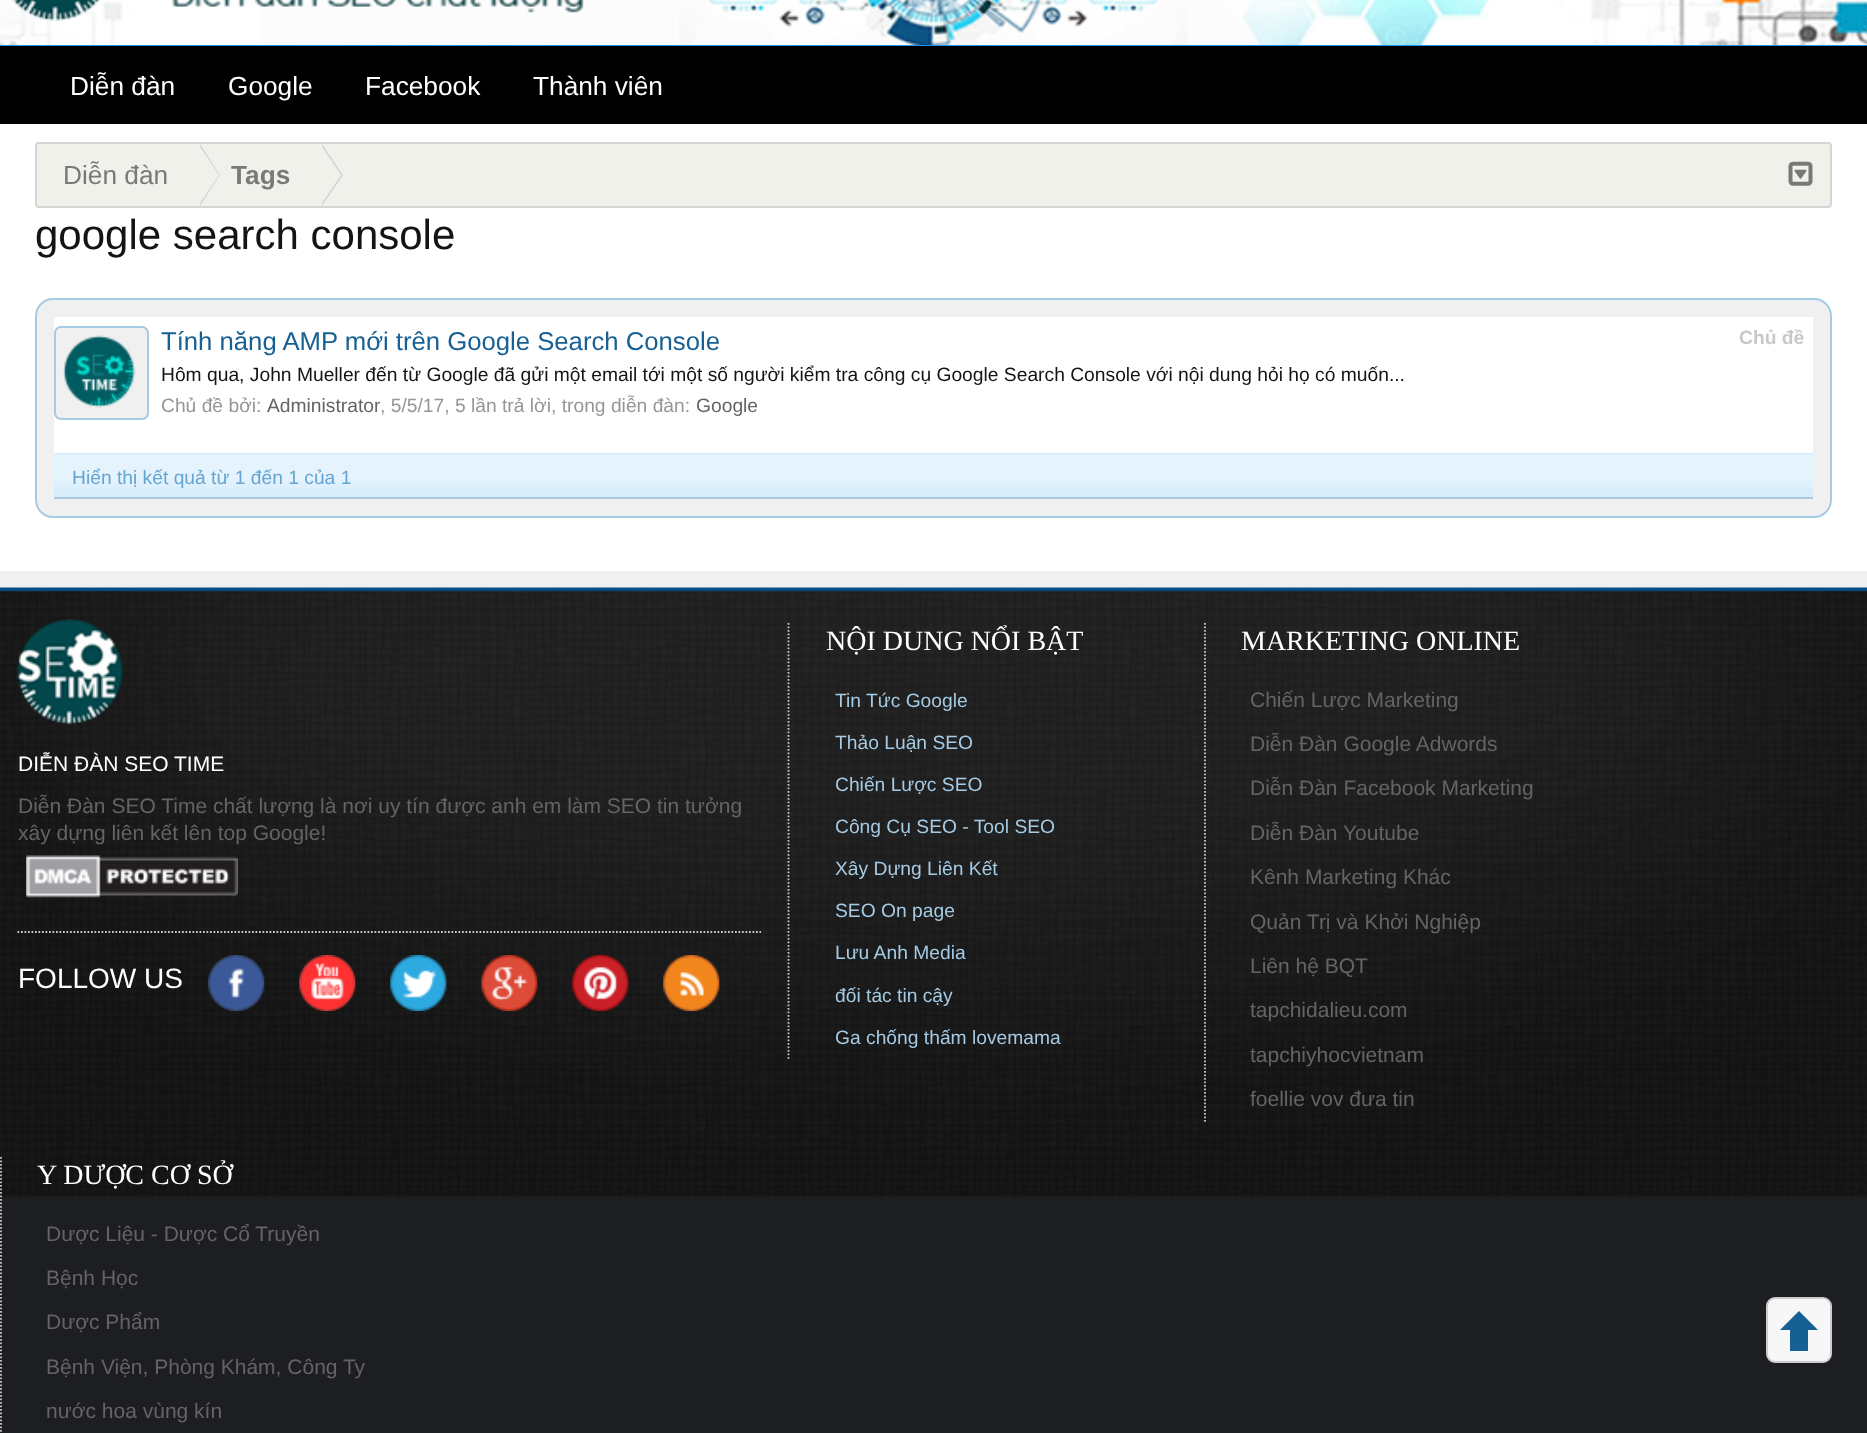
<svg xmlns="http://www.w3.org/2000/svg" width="1867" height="1433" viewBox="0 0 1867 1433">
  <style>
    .t1 { font: 26.25px Liberation Sans; fill: #fff; }
    .t2 { font: 26.25px Liberation Sans; fill: #797976; }
    .t3 { font: bold 26.25px Liberation Sans; fill: #797976; }
    .t4 { font: 42px Liberation Sans; fill: #141414; }
    .t5 { font: 25.7px Liberation Sans; fill: #176093; }
    .t6 { font: bold 19.25px Liberation Sans; fill: #c8c8c8; }
    .t7 { font: 19.25px Liberation Sans; fill: #141414; }
    .t8 { font: 19.25px Liberation Sans; fill: #969696; }
    .t9 { font: 19.25px Liberation Sans; fill: #646464; }
    .t10 { font: 19.25px Liberation Sans; fill: #65a5d1; }
    .t11 { font: 21px Liberation Sans; fill: #fff; }
    .t12 { font: 21px Liberation Sans; fill: #646464; }
    .t13 { font: 28px Liberation Sans; fill: #fff; }
    .t14 { font: 28px Liberation Serif; fill: #fff; }
    .t15 { font: 19.25px Liberation Sans; fill: #a5cae4; }
  </style>
  <rect width="100%" height="100%" fill="#f0f0f0"/>
  <rect x="0" y="0" width="1867" height="46" fill="#2192e9"/>
  <image x="0" y="0" width="1867" height="45" href="images/1.png"/>
  <image x="12" y="0" width="88" height="21" href="images/2.png"/>
  <rect x="0" y="46" width="1867" height="78" fill="#000"/>
  <text x="70" y="95" class="t1">Diễn đàn</text>
  <text x="228" y="95" class="t1">Google</text>
  <text x="365" y="95" class="t1">Facebook</text>
  <text x="533" y="95" class="t1">Thành viên</text>
  <rect x="0" y="124" width="1867" height="447" fill="#fff"/>
  <rect x="36" y="143" width="1795" height="64" rx="3" fill="#f1f1ec" stroke="#d5d5d5" stroke-width="2"/>
  <text x="63" y="184" class="t2">Diễn đàn</text>
  <path d="M200 206V144L220 175Z" fill="#d5d5d5"/>
  <path d="M198 206V144L219 175Z" fill="#f1f1ec"/>
  <text x="231" y="184" class="t3">Tags</text>
  <path d="M322 206V144L343 175Z" fill="#d5d5d5"/>
  <path d="M320 206V144L341 175Z" fill="#f1f1ec"/>
  <image x="1788" y="161" width="25" height="25" href="images/3.png"/>
  <text x="35" y="249" class="t4">google search console</text>
  <rect x="36" y="299" width="1795" height="218" rx="17" fill="#f0f0f0" stroke="#a5cae4" stroke-width="2"/>
  <rect x="54" y="317" width="1759" height="136" fill="#fff"/>
  <rect x="54" y="453" width="1759" height="44" fill="#d7edfc"/>
  <rect x="55" y="327" width="93" height="92" rx="6" fill="#f0f0f0" stroke="#a5cae4" stroke-width="2"/>
  <image x="63" y="335" width="73" height="74" href="images/4.png"/>
  <text x="161" y="350" class="t5">Tính năng AMP mới trên Google Search Console</text>
  <text x="1739" y="344" class="t6">Chủ đề</text>
  <text x="161" y="381" class="t7">Hôm qua, John Mueller đến từ Google đã gửi một email tới một số người kiểm tra công cụ Google Search Console với nội dung hỏi họ có muốn...</text>
  <text x="161" y="412" class="t8">Chủ đề bởi:</text>
  <text x="267" y="412" class="t9">Administrator</text>
  <text x="380" y="412" class="t8">, 5/5/17, 5 lần trả lời, trong diễn đàn:</text>
  <text x="696" y="412" class="t9">Google</text>
  <image x="54" y="454" width="1759" height="35" href="images/5.png"/>
  <rect x="54" y="497" width="1759" height="2" fill="#a5cae4"/>
  <text x="72" y="484" class="t10">Hiển thị kết quả từ 1 đến 1 của 1</text>
  <rect x="0" y="1196" width="1867" height="237" fill="#1d1e22"/>
  <image x="0" y="587" width="1867" height="610" href="images/6.png"/>
  <image x="17" y="619" width="106" height="105" href="images/7.png"/>
  <path d="M17.5 932H761" fill="none" stroke="#c8c8c8" stroke-width="1.8" stroke-dasharray="1.75 1.75"/>
  <text x="18" y="771" class="t11">DIỄN ĐÀN SEO TIME</text>
  <text x="18" y="813" class="t12">Diễn Đàn SEO Time chất lượng là nơi uy tín được anh em làm SEO tin tưởng</text>
  <text x="18" y="840" class="t12">xây dựng liên kết lên top Google!</text>
  <image x="26" y="855" width="212" height="43" href="images/8.png"/>
  <text x="18" y="988" class="t13">FOLLOW US</text>
  <image x="208" y="955" width="57" height="56" href="images/9.png"/>
  <image x="299" y="955" width="57" height="56" href="images/10.png"/>
  <image x="390" y="955" width="57" height="56" href="images/11.png"/>
  <image x="481" y="955" width="57" height="56" href="images/12.png"/>
  <image x="572" y="955" width="57" height="56" href="images/13.png"/>
  <image x="663" y="955" width="57" height="56" href="images/14.png"/>
  <path d="M788.5 623V1059" fill="none" stroke="#c8c8c8" stroke-width="1.8" stroke-dasharray="1.75 1.75"/>
  <text x="826" y="650" class="t14">NỘI DUNG NỔI BẬT</text>
  <text x="835" y="707" class="t15">Tin Tức Google</text>
  <text x="835" y="749" class="t15">Thảo Luận SEO</text>
  <text x="835" y="791" class="t15">Chiến Lược SEO</text>
  <text x="835" y="833" class="t15">Công Cụ SEO - Tool SEO</text>
  <text x="835" y="875" class="t15">Xây Dựng Liên Kết</text>
  <text x="835" y="917" class="t15">SEO On page</text>
  <text x="835" y="959" class="t15">Lưu Anh Media</text>
  <text x="835" y="1002" class="t15">đối tác tin cậy</text>
  <text x="835" y="1044" class="t15">Ga chống thấm lovemama</text>
  <path d="M1205 623V1122" fill="none" stroke="#c8c8c8" stroke-width="1.8" stroke-dasharray="1.75 1.75"/>
  <text x="1241" y="650" class="t14">MARKETING ONLINE</text>
  <text x="1250" y="707" class="t12">Chiến Lược Marketing</text>
  <text x="1250" y="751" class="t12">Diễn Đàn Google Adwords</text>
  <text x="1250" y="795" class="t12">Diễn Đàn Facebook Marketing</text>
  <text x="1250" y="840" class="t12">Diễn Đàn Youtube</text>
  <text x="1250" y="884" class="t12">Kênh Marketing Khác</text>
  <text x="1250" y="929" class="t12">Quản Trị và Khởi Nghiệp</text>
  <text x="1250" y="973" class="t12">Liên hệ BQT</text>
  <text x="1250" y="1017" class="t12">tapchidalieu.com</text>
  <text x="1250" y="1062" class="t12">tapchiyhocvietnam</text>
  <text x="1250" y="1106" class="t12">foellie vov đưa tin</text>
  <path d="M1 1157V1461" fill="none" stroke="#c8c8c8" stroke-width="1.8" stroke-dasharray="1.75 1.75"/>
  <text x="37" y="1184" class="t14">Y DƯỢC CƠ SỞ</text>
  <text x="46" y="1241" class="t12">Dược Liệu - Dược Cổ Truyền</text>
  <text x="46" y="1285" class="t12">Bệnh Học</text>
  <text x="46" y="1329" class="t12">Dược Phẩm</text>
  <text x="46" y="1374" class="t12">Bệnh Viện, Phòng Khám, Công Ty</text>
  <text x="46" y="1418" class="t12">nước hoa vùng kín</text>
  <rect x="1767" y="1298" width="64" height="64" rx="8" fill="#f7f7f7" stroke="#ccc" stroke-width="2"/>
  <path d="M1818 1330H1780L1799 1311Z" fill="#176093"/>
  <rect x="1790" y="1330" width="18" height="21" fill="#176093"/>
</svg>
